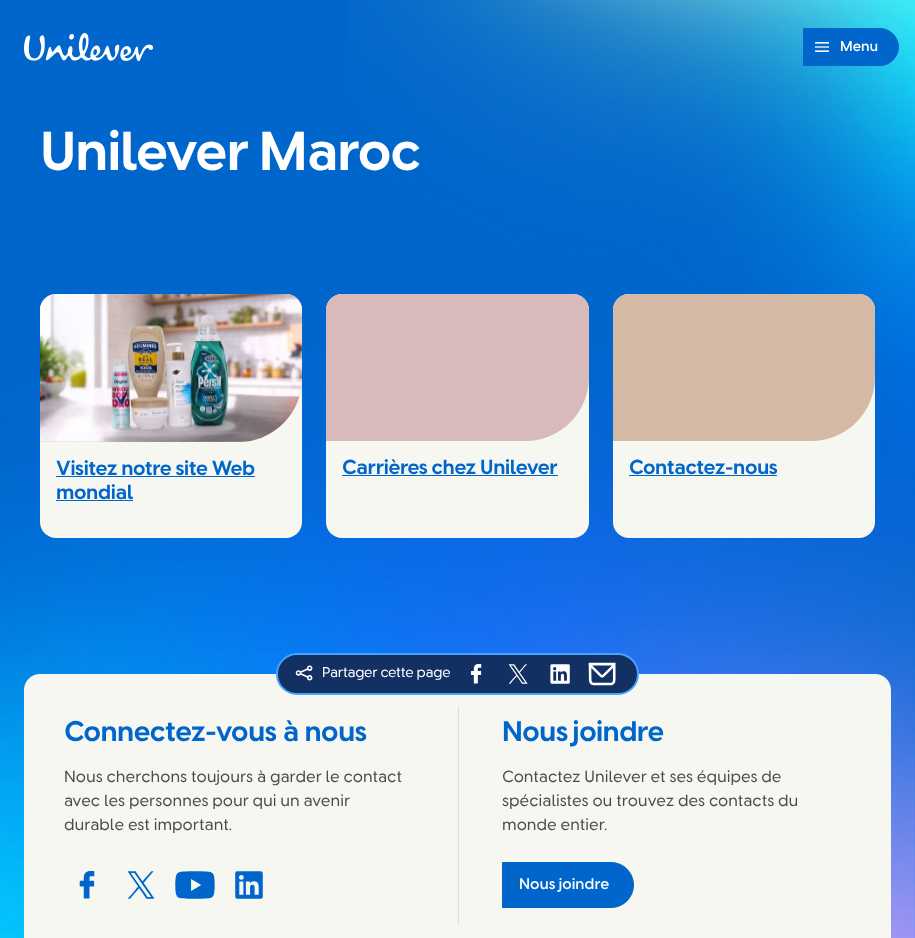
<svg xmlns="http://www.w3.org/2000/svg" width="915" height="938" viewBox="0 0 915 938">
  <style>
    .t1 { font: 600 14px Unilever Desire; fill: #fff; }
    .t2 { font: bold 54px Unilever Desire; letter-spacing: -1.1px; fill: #fff; }
    .t3 { font: bold 20px Unilever Desire; letter-spacing: -0.4px; fill: #06c; }
    .t4 { font: 14px Unilever Desire; letter-spacing: -0.25px; fill: #fff; }
    .t5 { font: bold 28px Unilever Desire; letter-spacing: -0.6px; fill: #06c; }
    .t6 { font: 16px Unilever Desire; fill: #4d4b46; }
    .t7 { font: 600 15px Unilever Desire; fill: #fff; }
  </style>
  <rect width="100%" height="100%" fill="#06c"/>
  <image x="347" y="0" width="568" height="555" href="images/1.png"/>
  <image x="24" y="33" width="129" height="28" href="images/2.png"/>
  <path d="M803.5 28.5H880C890 28.5 898.5 37 898.5 47C898.5 57 890 65.5 880 65.5H803.5Z" fill="#06c" stroke="#06c"/>
  <image x="815" y="42" width="14" height="10" href="images/3.png"/>
  <text x="840" y="51" class="t1">Menu</text>
  <text x="40" y="170" class="t2">Unilever Maroc</text>
  <image x="0" y="349" width="915" height="589" href="images/14.png"/>
  <rect x="40" y="294" width="262" height="244" rx="16" fill="#f6f7f0"/>
  <path d="M56 294H286C295 294 302 301 302 310V378C302 413.5 273.5 442 238 442H40V310C40 301 47 294 56 294Z" fill="#c4b7bb"/>
  <image x="40" y="294" width="262" height="148" href="images/4.png"/>
  <text x="56" y="475" class="t3">Visitez notre site Web</text>
  <rect x="56" y="476" width="199" height="1" fill="#06c"/>
  <text x="56" y="499" class="t3">mondial</text>
  <rect x="56" y="500" width="77" height="1" fill="#06c"/>
  <rect x="326" y="294" width="263" height="244" rx="16" fill="#f6f7f0"/>
  <path d="M342 294H573C582 294 589 301 589 310V377C589 412.5 560.5 441 525 441H326V310C326 301 333 294 342 294Z" fill="#d7bab9"/>
  <text x="342" y="474" class="t3">Carrières chez Unilever</text>
  <rect x="342" y="475" width="216" height="1" fill="#06c"/>
  <rect x="613" y="294" width="262" height="244" rx="16" fill="#f6f7f0"/>
  <path d="M629 294H859C868 294 875 301 875 310V377C875 412.5 846.5 441 811 441H613V310C613 301 620 294 629 294Z" fill="#d4baa5"/>
  <text x="629" y="474" class="t3">Contactez-nous</text>
  <rect x="629" y="475" width="148" height="1" fill="#06c"/>
  <path d="M40 674H875C884 674 891 681 891 690V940H24V690C24 681 31 674 40 674Z" fill="#f6f7f0"/>
  <rect x="277" y="654" width="361" height="40" rx="20" fill="#133062" stroke="#47a3ff" stroke-width="2"/>
  <image x="295" y="665" width="18" height="16" href="images/5.png"/>
  <text x="322" y="677" class="t4">Partager cette page</text>
  <image x="470" y="664" width="12" height="20" href="images/6.png"/>
  <image x="508" y="664" width="20" height="20" href="images/7.png"/>
  <image x="550" y="664" width="20" height="20" href="images/8.png"/>
  <image x="588" y="662" width="28" height="24" href="images/9.png"/>
  <text x="64" y="741" class="t5">Connectez-vous à nous</text>
  <text x="64" y="782" class="t6">Nous cherchons toujours à garder le contact</text>
  <text x="64" y="806" class="t6">avec les personnes pour qui un avenir</text>
  <text x="64" y="830" class="t6">durable est important.</text>
  <image x="79" y="871" width="16" height="28" href="images/10.png"/>
  <image x="127" y="871" width="28" height="28" href="images/11.png"/>
  <image x="175" y="871" width="40" height="28" href="images/12.png"/>
  <image x="235" y="871" width="28" height="28" href="images/13.png"/>
  <rect x="458" y="706" width="1" height="218" fill="#deded7"/>
  <text x="502" y="741" class="t5">Nous joindre</text>
  <text x="502" y="782" class="t6">Contactez Unilever et ses équipes de</text>
  <text x="502" y="806" class="t6">spécialistes ou trouvez des contacts du</text>
  <text x="502" y="830" class="t6">monde entier.</text>
  <path d="M502.5 862.5H611C623.5 862.5 633.5 872.5 633.5 885C633.5 897.5 623.5 907.5 611 907.5H502.5Z" fill="#06c" stroke="#06c"/>
  <text x="519" y="889" class="t7">Nous joindre</text>
</svg>
